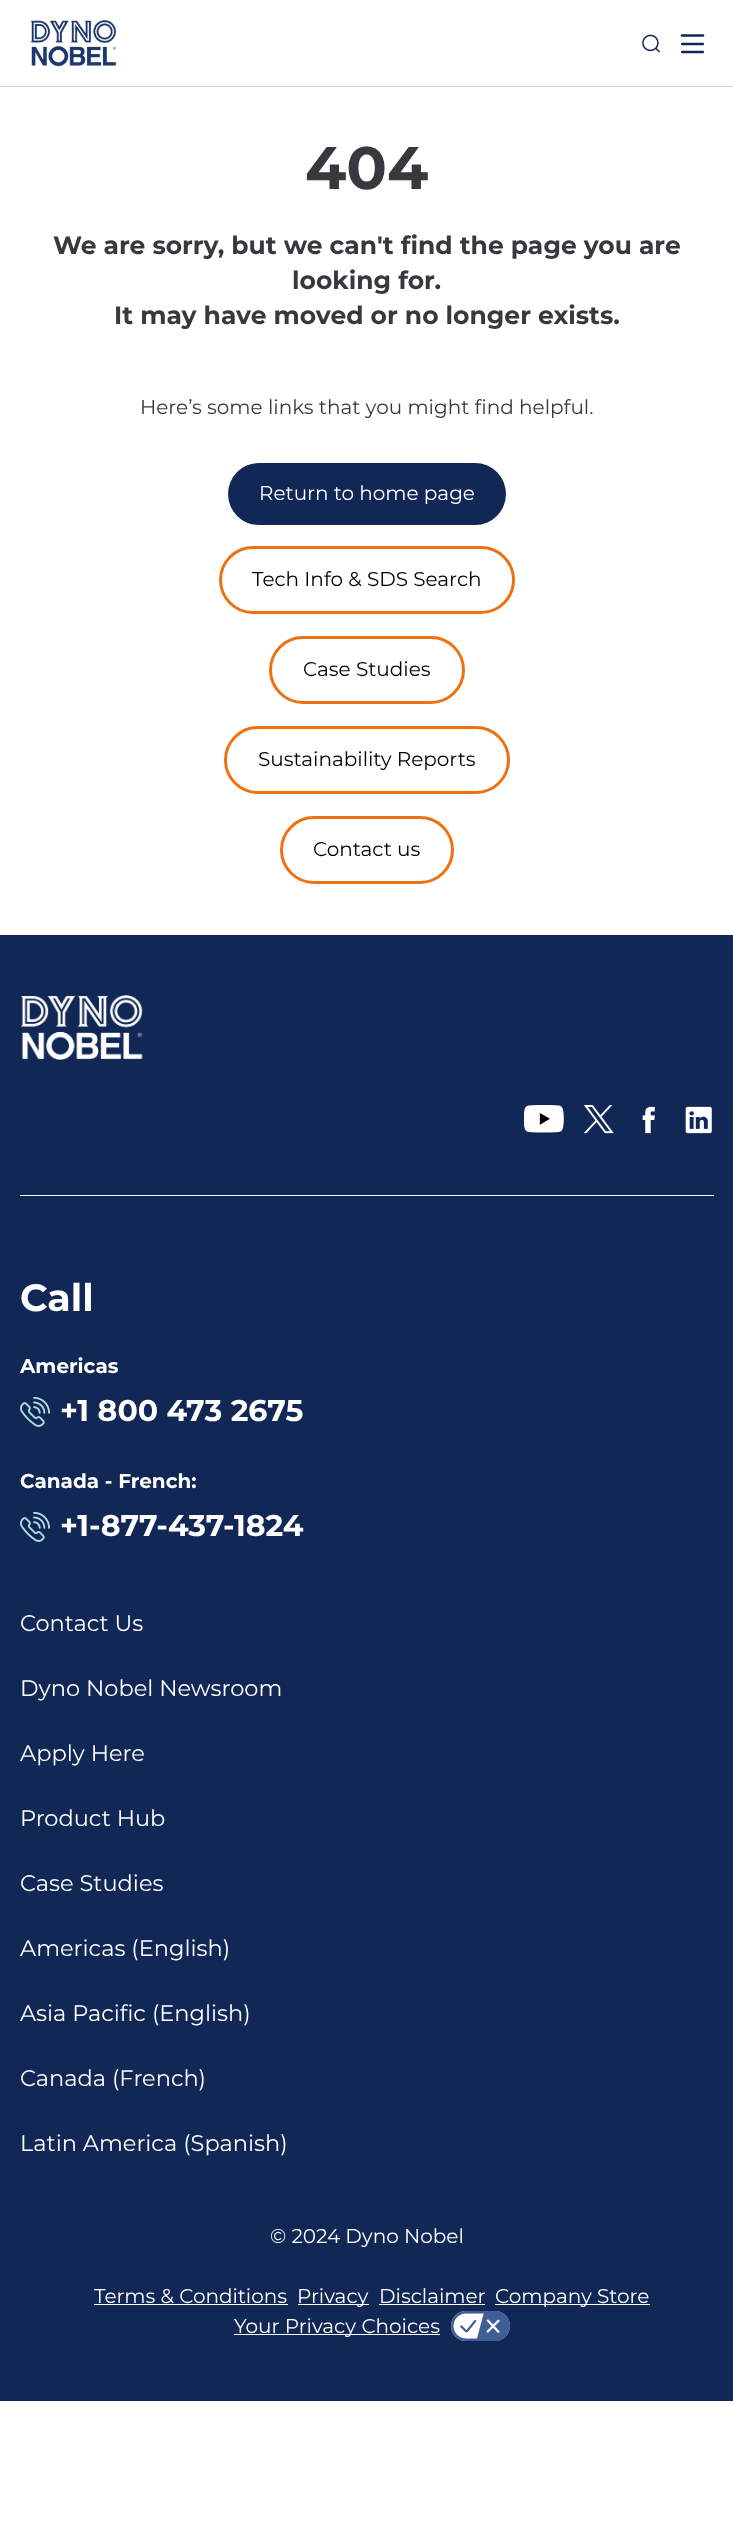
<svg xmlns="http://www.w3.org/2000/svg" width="733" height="2530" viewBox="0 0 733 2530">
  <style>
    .t1 { font: bold 60px Montserrat; fill: #38393c; }
    .t2 { font: bold 25px Montserrat; fill: #38393c; }
    .t3 { font: 20px Montserrat; fill: #38393c; }
    .t4 { font: 20px Montserrat; fill: #fff; }
    .t5 { font: 20px Montserrat; fill: #000; }
    .t6 { font: bold 38px Montserrat; fill: #fff; }
    .t7 { font: bold 20px Montserrat; fill: #fff; }
    .t8 { font: bold 30px Montserrat; fill: #fff; }
    .t9 { font: 22.5px Montserrat; fill: #fff; }
  </style>
  <defs>
    <clipPath id="clip1"><rect x="681" y="33" width="23" height="22"/></clipPath>
  </defs>
  <rect width="100%" height="100%" fill="#fff"/>
  <rect x="0" y="86" width="733" height="1" fill="#d4d4d4"/>
  <image x="30" y="20" width="87" height="47" href="images/1.png"/>
  <image x="642" y="34" width="18" height="19" href="images/2.png"/>
  <path d="M703 35.5H682" fill="none" stroke="#112756" stroke-width="2.5" stroke-linecap="round" stroke-linejoin="round"/>
  <g clip-path="url(#clip1)">
    <path d="M703 44H682M703 52H682" fill="none" stroke="#112756" stroke-width="2.5" stroke-linecap="round" stroke-linejoin="round"/>
  </g>
  <text x="305" y="189" class="t1">404</text>
  <text x="53" y="254" class="t2">We are sorry, but we can't find the page you are</text>
  <text x="292" y="289" class="t2">looking for.</text>
  <text x="114" y="324" class="t2">It may have moved or no longer exists.</text>
  <text x="140" y="414" class="t3">Here’s some links that you might find helpful.</text>
  <rect x="228" y="463" width="278" height="62" rx="31" fill="#112756"/>
  <text x="259" y="500" class="t4">Return to home page</text>
  <rect x="220.5" y="547.5" width="293" height="65" rx="32.5" fill="none" stroke="#ef7011" stroke-width="3"/>
  <text x="252" y="586" class="t5">Tech Info &amp; SDS Search</text>
  <rect x="270.5" y="637.5" width="193" height="65" rx="32.5" fill="none" stroke="#ef7011" stroke-width="3"/>
  <text x="303" y="676" class="t5">Case Studies</text>
  <rect x="225.5" y="727.5" width="283" height="65" rx="32.5" fill="none" stroke="#ef7011" stroke-width="3"/>
  <text x="258" y="766" class="t5">Sustainability Reports</text>
  <rect x="281.5" y="817.5" width="171" height="65" rx="32.5" fill="none" stroke="#ef7011" stroke-width="3"/>
  <text x="313" y="856" class="t5">Contact us</text>
  <rect x="0" y="935" width="733" height="1466" fill="#112756"/>
  <rect x="20" y="1195" width="694" height="1" fill="#fff"/>
  <image x="20" y="995" width="123" height="65" href="images/3.png"/>
  <image x="524" y="1105" width="40" height="28" href="images/4.png"/>
  <image x="584" y="1105" width="30" height="29" href="images/5.png"/>
  <image x="642" y="1106" width="13" height="28" href="images/6.png"/>
  <image x="685" y="1106" width="27" height="28" href="images/7.png"/>
  <text x="20" y="1311" class="t6">Call</text>
  <text x="20" y="1373" class="t7">Americas</text>
  <image x="20" y="1397" width="30" height="30" href="images/8.png"/>
  <text x="60" y="1421" class="t8">+1 800 473 2675</text>
  <text x="20" y="1488" class="t7">Canada - French:</text>
  <image x="20" y="1512" width="30" height="30" href="images/8.png"/>
  <text x="60" y="1536" class="t8">+1-877-437-1824</text>
  <text x="20" y="1631" class="t9">Contact Us</text>
  <text x="20" y="1696" class="t9">Dyno Nobel Newsroom</text>
  <text x="20" y="1761" class="t9">Apply Here</text>
  <text x="20" y="1826" class="t9">Product Hub</text>
  <text x="20" y="1891" class="t9">Case Studies</text>
  <text x="20" y="1956" class="t9">Americas (English)</text>
  <text x="20" y="2021" class="t9">Asia Pacific (English)</text>
  <text x="20" y="2086" class="t9">Canada (French)</text>
  <text x="20" y="2151" class="t9">Latin America (Spanish)</text>
  <text x="270" y="2243" class="t4">© 2024 Dyno Nobel</text>
  <text x="94" y="2303" class="t4">Terms &amp; Conditions</text>
  <rect x="94" y="2304" width="194" height="1" fill="#fff"/>
  <rect x="298" y="2304" width="71" height="1" fill="#fff"/>
  <text x="297" y="2303" class="t4">Privacy</text>
  <text x="379" y="2303" class="t4">Disclaimer</text>
  <rect x="379" y="2304" width="106" height="1" fill="#fff"/>
  <rect x="495" y="2304" width="155" height="1" fill="#fff"/>
  <text x="495" y="2303" class="t4">Company Store</text>
  <rect x="234" y="2334" width="206" height="1" fill="#fff"/>
  <text x="234" y="2333" class="t4">Your Privacy Choices</text>
  <image x="451" y="2311" width="59" height="30" href="images/9.png"/>
</svg>
